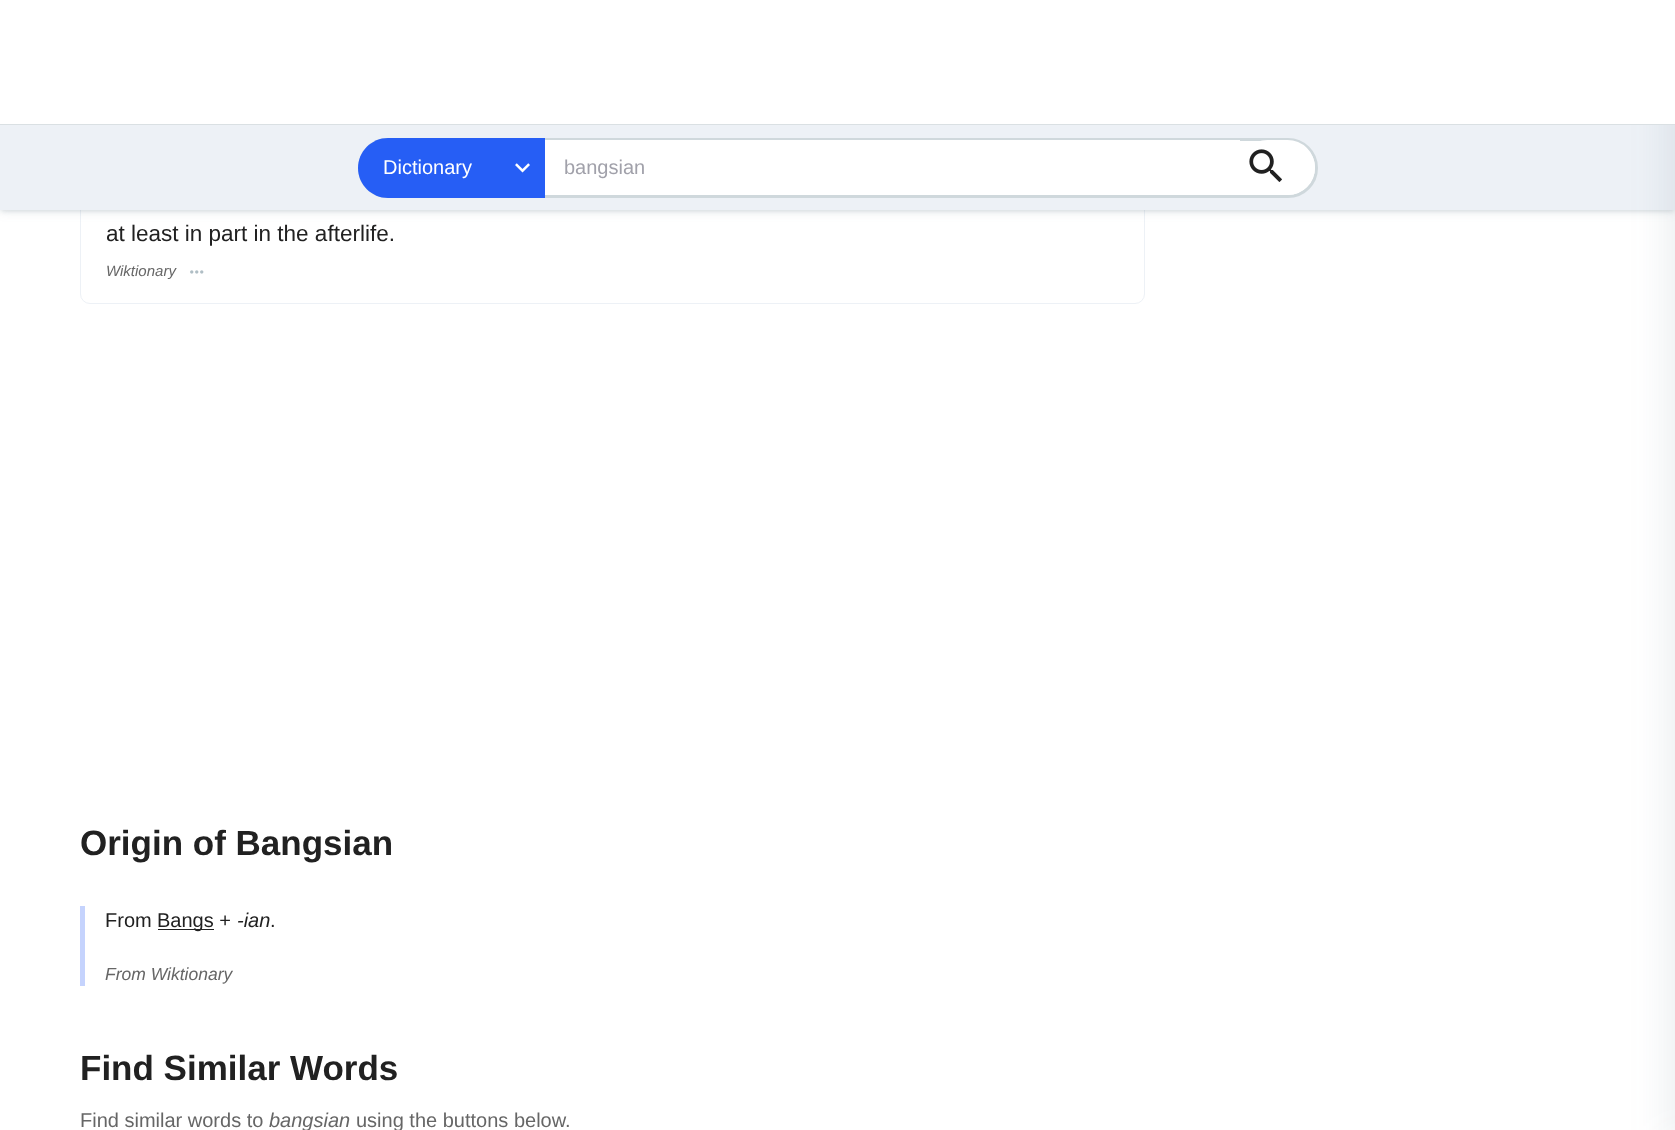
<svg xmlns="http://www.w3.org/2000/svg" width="1675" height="1130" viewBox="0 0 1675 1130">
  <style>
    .t1 { font: 20px Liberation Sans; fill: #fff; }
    .t2 { font: 20px Liberation Sans; fill: #a1a1aa; }
    .t3 { font: 22.5px Liberation Sans; fill: #212121; }
    .t4 { font: italic 15px Liberation Sans; fill: #666; }
    .t5 { font: bold 35px Liberation Sans; fill: #212121; }
    .t6 { font: 20px Liberation Sans; fill: #212121; }
    .t7 { font: italic 20px Liberation Sans; fill: #212121; }
    .t8 { font: italic 17.5px Liberation Sans; fill: #666; }
    .t9 { font: 20px Liberation Sans; fill: #666; }
    .t10 { font: italic 20px Liberation Sans; fill: #666; }
  </style>
  <rect width="100%" height="100%" fill="#fff"/>
  <rect x="80.5" y="168.5" width="1064" height="135" rx="9.5" fill="none" stroke="#edf1f6"/>
  <rect x="1" y="59" width="1673" height="152" fill="#546e7a33" filter="blur(2.5px)"/>
  <rect x="0" y="56" width="1675" height="155" fill="#546e7a1f" filter="blur(6px)"/>
  <rect x="0" y="125" width="1675" height="85" fill="#edf1f6"/>
  <rect x="1669" y="1" width="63" height="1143" fill="#546e7a1f" filter="blur(19px)"/>
  <rect x="0" y="0" width="1675" height="124" fill="#fff"/>
  <rect x="0" y="124" width="1675" height="1" fill="#dae0e3"/>
  <rect x="359.5" y="139.5" width="957" height="57" rx="28.5" fill="#fff" stroke="#cfd8dc" stroke-width="3"/>
  <path d="M388 138H545V198H388C371.5 198 358 184.5 358 168C358 151.5 371.5 138 388 138Z" fill="#265ef5"/>
  <text x="383" y="174" class="t1">Dictionary</text>
  <image x="515" y="163" width="15" height="10" href="images/1.png"/>
  <rect x="545" y="140" width="695" height="1" fill="#fff"/>
  <text x="564" y="174" class="t2">bangsian</text>
  <rect x="1240" y="140" width="75" height="55" rx="27.5" fill="#fff"/>
  <image x="1249" y="149" width="33" height="33" href="images/2.png"/>
  <text x="106" y="241" class="t3">at least in part in the afterlife.</text>
  <text x="106" y="276" class="t4">Wiktionary</text>
  <image x="190" y="270" width="14" height="4" href="images/3.png"/>
  <text x="80" y="855" class="t5">Origin of Bangsian</text>
  <rect x="80" y="906" width="5" height="80" fill="#c5d3fd"/>
  <text x="105" y="927" class="t6">From</text>
  <rect x="158" y="929" width="56" height="1" fill="#212121"/>
  <text x="157" y="927" class="t6">Bangs +</text>
  <text x="237" y="927" class="t7">-ian</text>
  <text x="270" y="927" class="t6">.</text>
  <text x="105" y="980" class="t8">From Wiktionary</text>
  <text x="80" y="1080" class="t5">Find Similar Words</text>
  <text x="80" y="1127" class="t9">Find similar words to</text>
  <text x="269" y="1127" class="t10">bangsian</text>
  <text x="356" y="1127" class="t9">using the buttons below.</text>
</svg>
